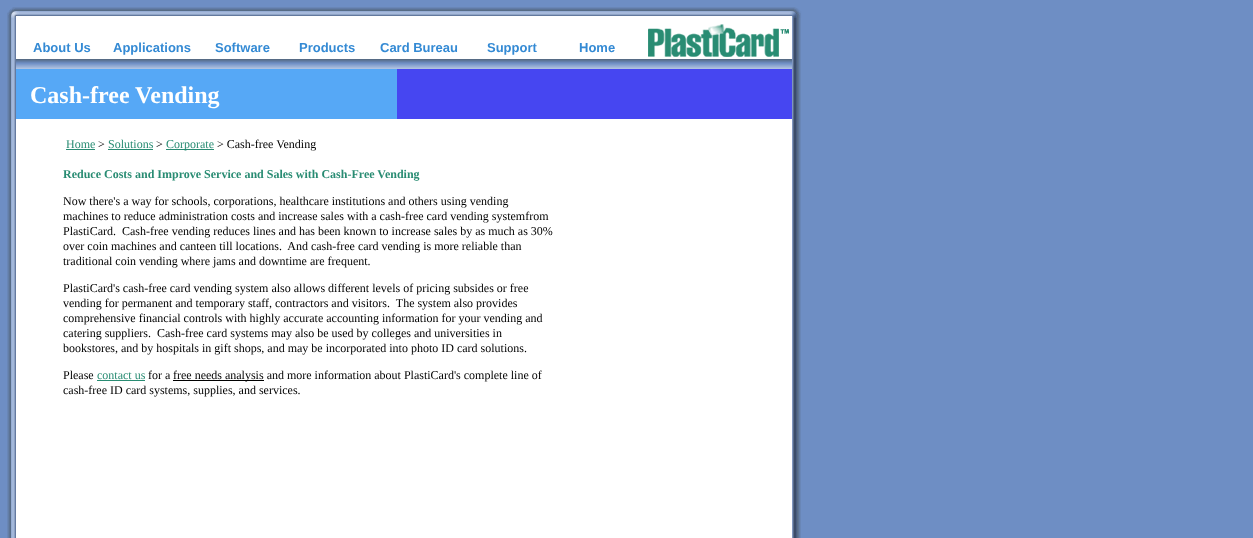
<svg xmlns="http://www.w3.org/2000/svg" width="1253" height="538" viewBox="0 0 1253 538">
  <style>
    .t1 { font: bold 13px Liberation Sans; fill: #348ad4; }
    .t2 { font: bold 24px Liberation Serif; fill: #fff; }
    .t3 { font: 12px Liberation Serif; fill: #298c73; }
    .t4 { font: 12px Liberation Serif; fill: #000; }
    .t5 { font: bold 12px Liberation Serif; fill: #298c73; }
  </style>
  <rect width="100%" height="100%" fill="#6e8ec4"/>
  <rect x="16" y="18" width="776" height="520" fill="#fff"/>
  <text x="33" y="52" class="t1">About Us</text>
  <text x="113" y="52" class="t1">Applications</text>
  <text x="215" y="52" class="t1">Software</text>
  <text x="299" y="52" class="t1">Products</text>
  <text x="380" y="52" class="t1">Card Bureau</text>
  <text x="487" y="52" class="t1">Support</text>
  <text x="579" y="52" class="t1">Home</text>
  <image x="6" y="6" width="796" height="12" href="images/1.png"/>
  <image x="6" y="18" width="10" height="520" href="images/2.png"/>
  <image x="648" y="24" width="141" height="33" href="images/3.png"/>
  <image x="16" y="59" width="776" height="10" href="images/4.png"/>
  <rect x="16" y="69" width="381" height="50" fill="#56a8f6"/>
  <rect x="397" y="69" width="395" height="50" fill="#4646f1"/>
  <text x="30" y="103" class="t2">Cash-free Vending</text>
  <text x="66" y="148" class="t3">Home</text>
  <rect x="66" y="149" width="29" height="1" fill="#298c73"/>
  <text x="98" y="148" class="t4">&gt;</text>
  <text x="108" y="148" class="t3">Solutions</text>
  <rect x="108" y="149" width="45" height="1" fill="#298c73"/>
  <text x="156" y="148" class="t4">&gt;</text>
  <rect x="166" y="149" width="48" height="1" fill="#298c73"/>
  <text x="166" y="148" class="t3">Corporate</text>
  <text x="217" y="148" class="t4">&gt; Cash-free Vending</text>
  <text x="63" y="178" class="t5">Reduce Costs and Improve Service and Sales with Cash-Free Vending</text>
  <text x="63" y="205" class="t4">Now there's a way for schools, corporations, healthcare institutions and others using vending</text>
  <text x="63" y="220" class="t4">machines to reduce administration costs and increase sales with a cash-free card vending systemfrom</text>
  <text x="63" y="235" class="t4" xml:space="preserve">PlastiCard.  Cash-free vending reduces lines and has been known to increase sales by as much as 30%</text>
  <text x="63" y="250" class="t4" xml:space="preserve">over coin machines and canteen till locations.  And cash-free card vending is more reliable than</text>
  <text x="63" y="265" class="t4">traditional coin vending where jams and downtime are frequent.</text>
  <text x="63" y="292" class="t4">PlastiCard's cash-free card vending system also allows different levels of pricing subsides or free</text>
  <text x="63" y="307" class="t4" xml:space="preserve">vending for permanent and temporary staff, contractors and visitors.  The system also provides</text>
  <text x="63" y="322" class="t4">comprehensive financial controls with highly accurate accounting information for your vending and</text>
  <text x="63" y="337" class="t4" xml:space="preserve">catering suppliers.  Cash-free card systems may also be used by colleges and universities in</text>
  <text x="63" y="352" class="t4">bookstores, and by hospitals in gift shops, and may be incorporated into photo ID card solutions.</text>
  <text x="63" y="379" class="t4">Please</text>
  <text x="97" y="379" class="t3">contact us</text>
  <rect x="97" y="380" width="48" height="1" fill="#298c73"/>
  <text x="148" y="379" class="t4">for a</text>
  <rect x="173" y="380" width="91" height="1" fill="#000"/>
  <text x="173" y="379" class="t4">free needs analysis and more information about PlastiCard's complete line of</text>
  <text x="63" y="394" class="t4">cash-free ID card systems, supplies, and services.</text>
  <image x="792" y="18" width="10" height="520" href="images/5.png"/>
</svg>
